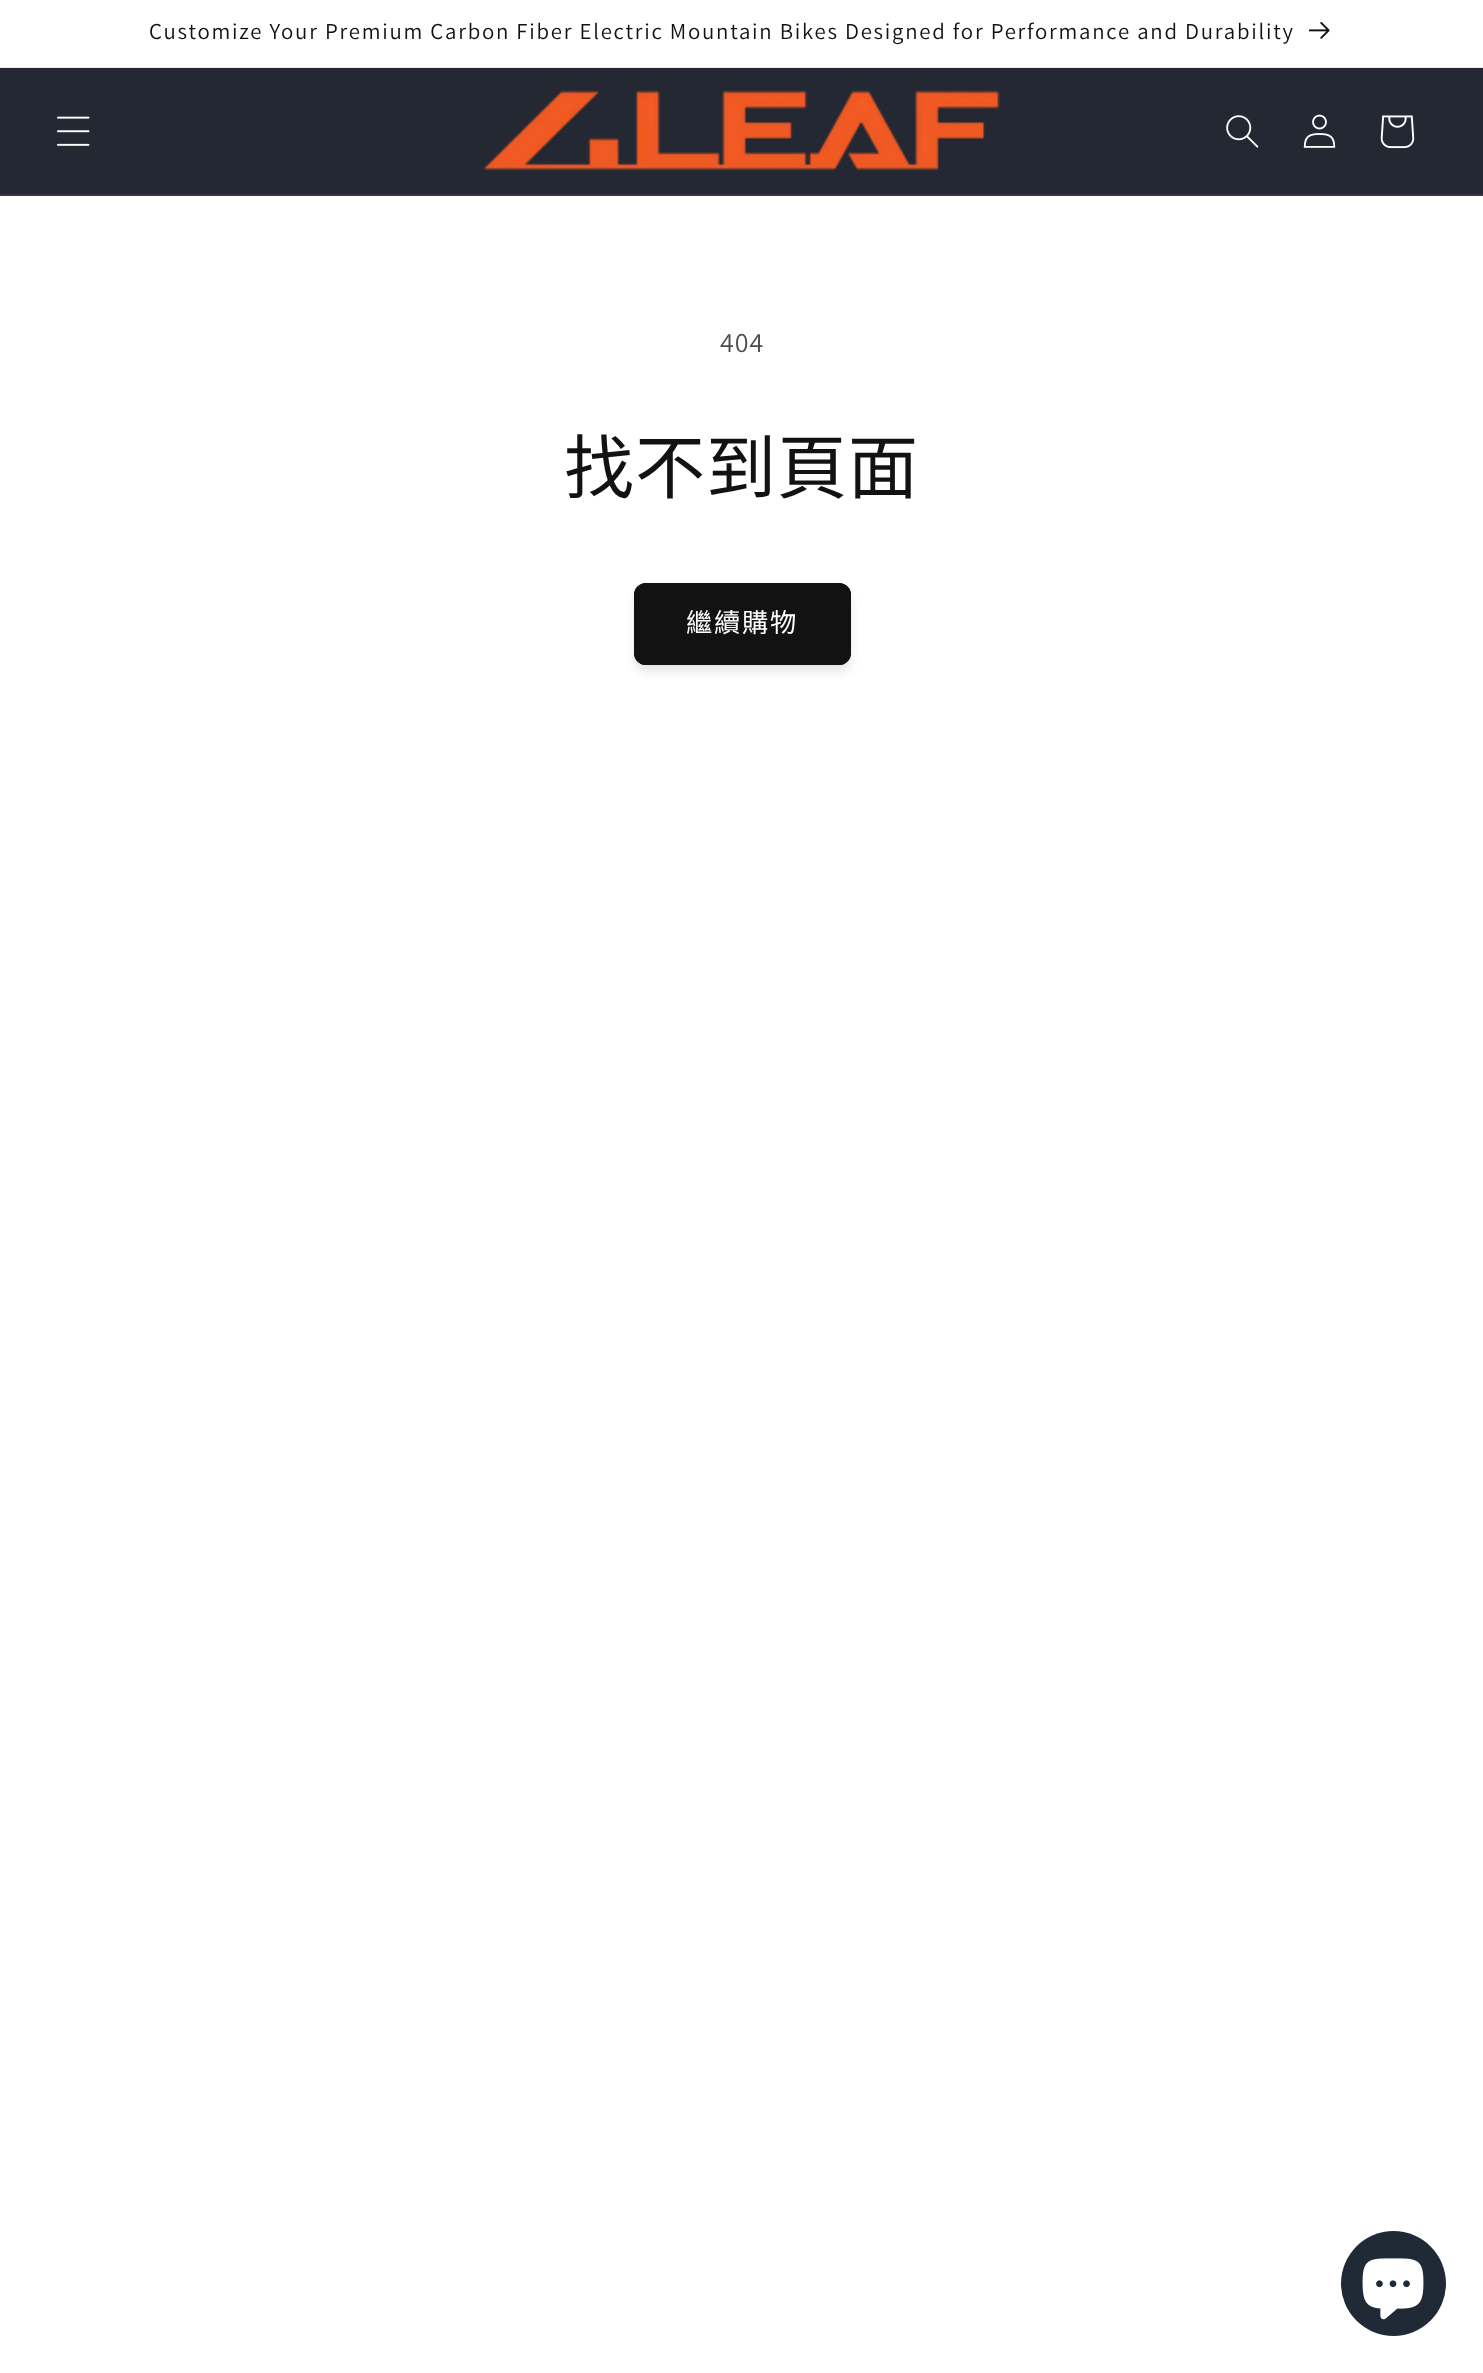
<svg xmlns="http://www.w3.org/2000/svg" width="1483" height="2373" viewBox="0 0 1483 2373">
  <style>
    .t1 { font: 22.75px Assistant; letter-spacing: 1.75px; fill: #121212; }
    .t2 { font: 28px Assistant; letter-spacing: 1px; fill: #4d4d4d; }
    .t3 { font: 70px Noto Sans CJK TC; letter-spacing: 1px; fill: #121212; }
    .t4 { font: 26.25px Noto Sans CJK TC; letter-spacing: 1.75px; fill: #fff; }
  </style>
  <rect width="100%" height="100%" fill="#fff"/>
  <rect x="0" y="67" width="1483" height="1" fill="#ececec"/>
  <text x="149" y="39" class="t1">Customize Your Premium Carbon Fiber Electric Mountain Bikes Designed for Performance and Durability</text>
  <image x="1309" y="22" width="21" height="17" href="images/1.png"/>
  <rect x="0" y="69" width="1483" height="125" fill="#242833"/>
  <rect x="0" y="68" width="1483" height="1" fill="#232630"/>
  <rect x="0" y="194" width="1483" height="2" fill="#363943"/>
  <image x="57" y="116" width="33" height="30" href="images/2.png"/>
  <image x="483" y="90" width="517" height="81" href="images/3.png"/>
  <image x="1226" y="115" width="33" height="33" href="images/4.png"/>
  <image x="1303" y="114" width="33" height="34" href="images/5.png"/>
  <image x="1380" y="115" width="35" height="34" href="images/6.png"/>
  <text x="720" y="352" class="t2">404</text>
  <text x="564" y="493" class="t3">找不到頁面</text>
  <rect x="634" y="590" width="217" height="82" rx="12" fill="#1212121a" filter="blur(4.5px)"/>
  <rect x="634" y="583" width="217" height="82" rx="12" fill="#121212"/>
  <rect x="635" y="584" width="215" height="80" rx="11" fill="none" stroke="#121212" stroke-width="2"/>
  <text x="686" y="632" class="t4">繼續購物</text>
  <circle cx="1393.5" cy="2283.5" r="52.5" fill="#202a36"/>
  <image x="1362" y="2258" width="62" height="62" href="images/7.png"/>
</svg>
